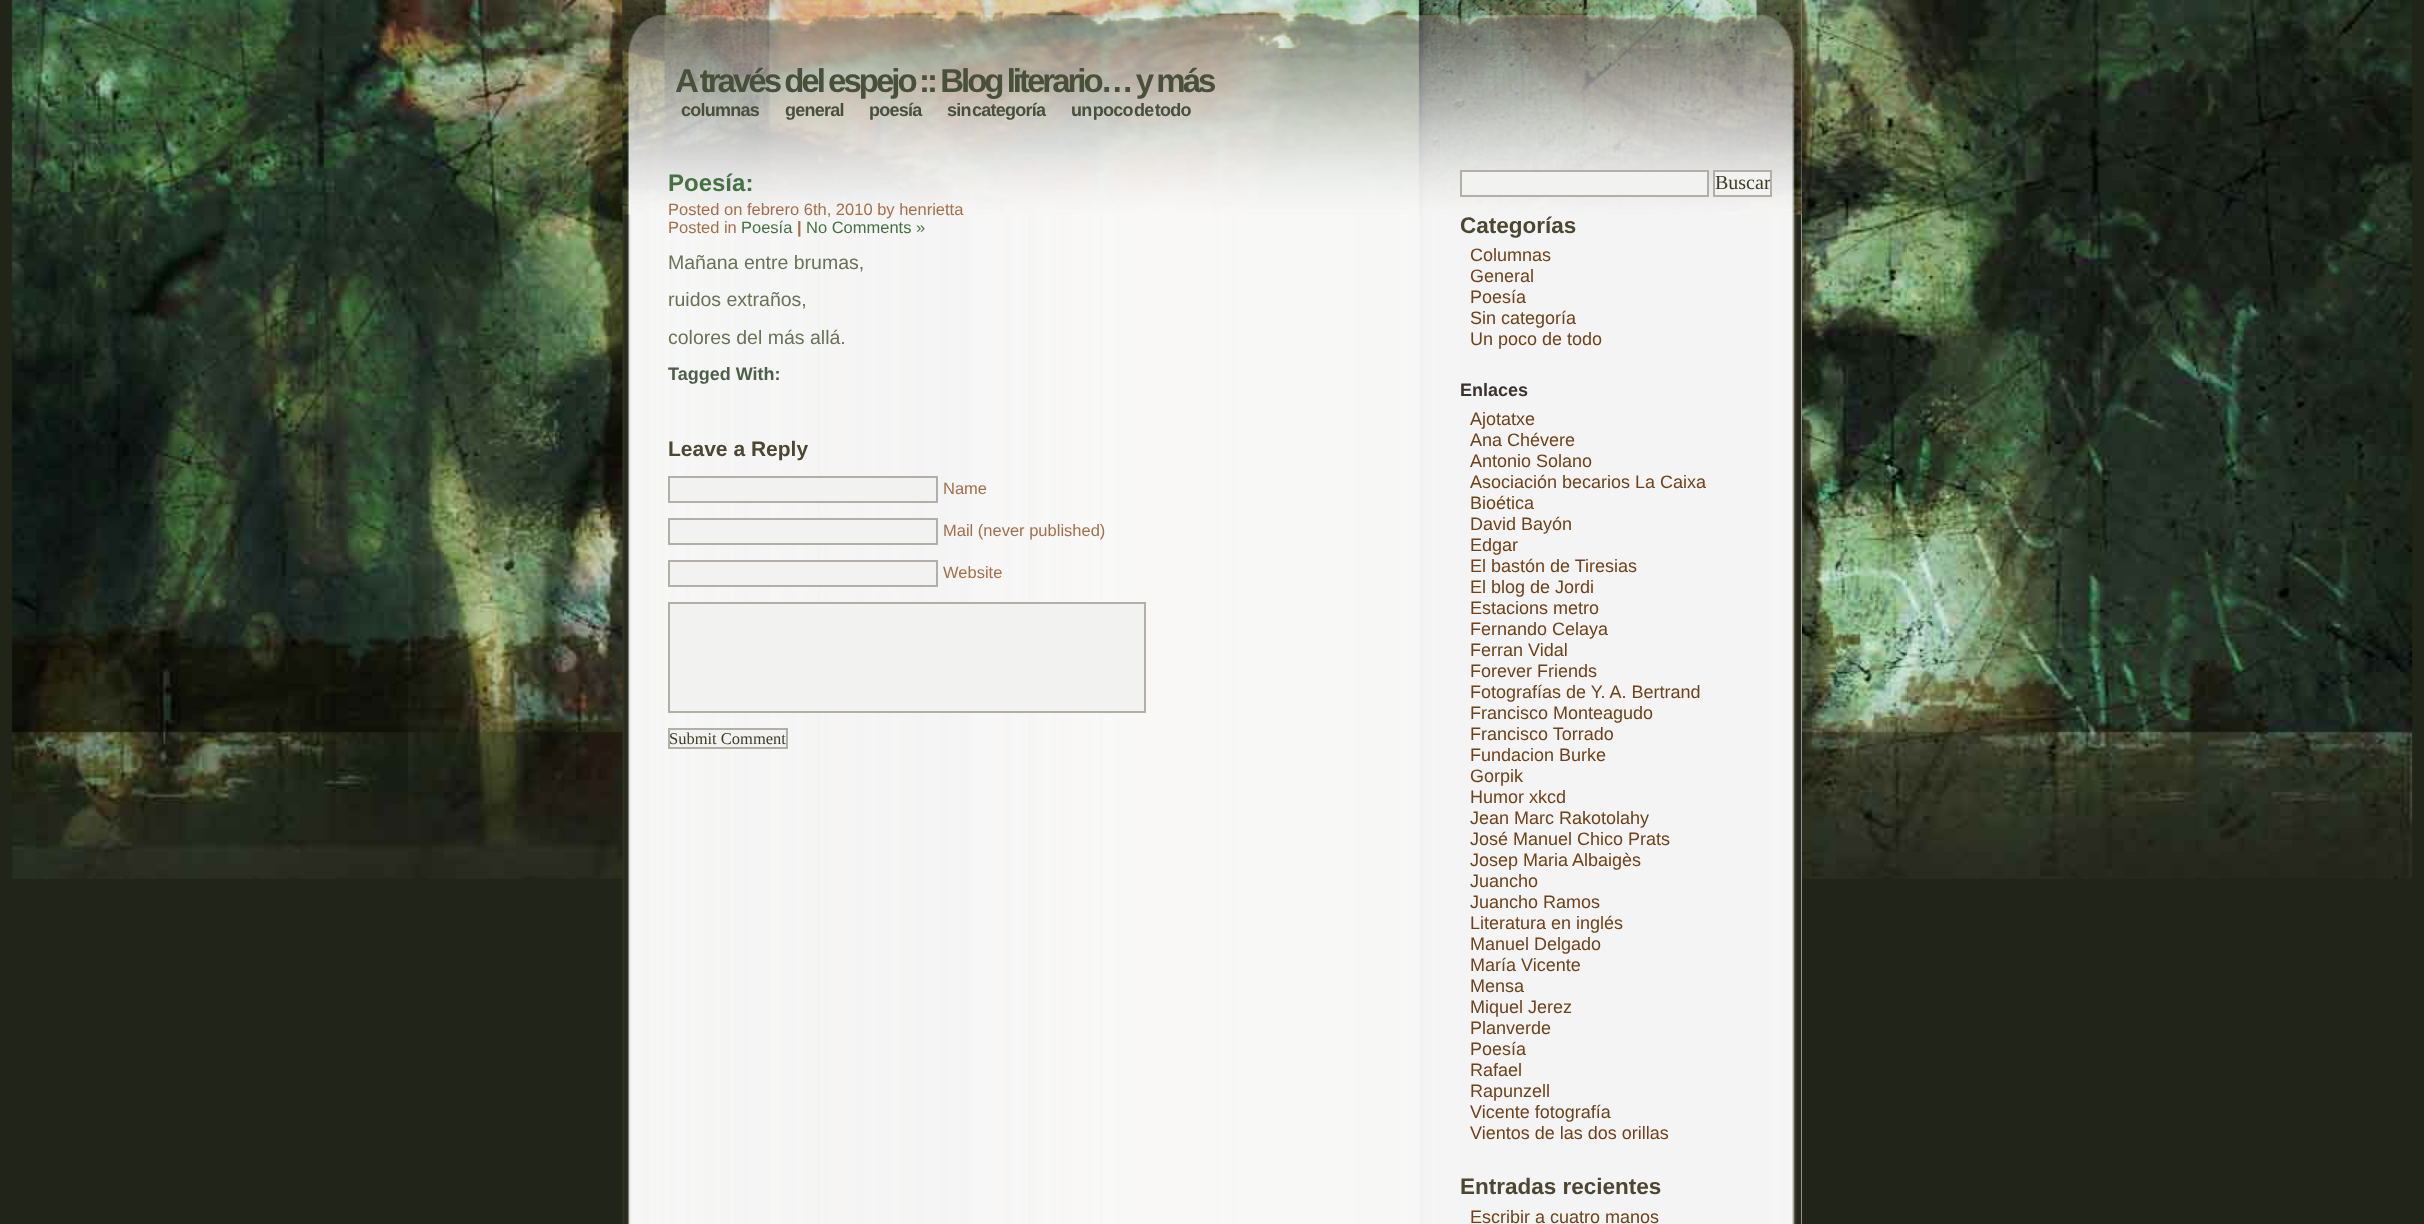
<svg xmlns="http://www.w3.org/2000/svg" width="2424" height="1224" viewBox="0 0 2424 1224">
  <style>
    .t1 { font: bold 33px Liberation Sans; letter-spacing: -3px; fill: #484f3b; }
    .t2 { font: bold 18px Liberation Sans; letter-spacing: -0.75px; fill: #484f3b; }
    .t3 { font: bold 24px Liberation Sans; fill: #467144; }
    .t4 { font: 16.5px Liberation Sans; fill: #a66e49; }
    .t5 { font: 16.5px Liberation Sans; fill: #467144; }
    .t6 { font: bold 16.5px Liberation Sans; fill: #a66e49; }
    .t7 { font: 19.5px Liberation Sans; fill: #687255; }
    .t8 { font: bold 18px Liberation Sans; fill: #4d5f47; }
    .t9 { font: bold 21px Liberation Sans; fill: #4d4631; }
    .t10 { font: 16.5px Liberation Serif; fill: #3c3c24; }
    .t11 { font: 20px Liberation Serif; fill: #3c3c24; }
    .t12 { font: bold 22.5px Liberation Sans; fill: #4d4631; }
    .t13 { font: 18px Liberation Sans; fill: #6f4219; }
    .t14 { font: bold 18px Liberation Sans; fill: #3b322f; }
  </style>
  <defs>
    <clipPath id="clip1"><rect x="1715" y="171" width="55" height="24"/></clipPath>
  </defs>
  <rect width="100%" height="100%" fill="#212418"/>
  <image x="11" y="0" width="2402" height="880" href="images/1.png"/>
  <rect x="1801" y="0" width="1" height="1224" fill="#fff"/>
  <image x="622" y="0" width="1180" height="1224" href="images/2.png"/>
  <image x="622" y="0" width="1180" height="215" href="images/3.png"/>
  <text x="675" y="92" word-spacing="-1" class="t1">A través del espejo</text>
  <text x="919" y="92" word-spacing="-1" class="t1">:: Blog literario… y más</text>
  <text x="681" y="116" class="t2">columnas</text>
  <text x="785" y="116" class="t2">general</text>
  <text x="869" y="116" class="t2">poesía</text>
  <text x="947" y="116" word-spacing="-3" class="t2">sin categoría</text>
  <text x="1071" y="116" word-spacing="-3" class="t2">un poco de todo</text>
  <text x="668" y="191" class="t3">Poesía:</text>
  <text x="668" y="215" class="t4">Posted on febrero 6th, 2010 by henrietta</text>
  <text x="668" y="233" class="t4">Posted in</text>
  <text x="741" y="233" class="t5">Poesía</text>
  <text x="797" y="233" class="t6">|</text>
  <text x="806" y="233" class="t5">No Comments »</text>
  <text x="668" y="269" class="t7">Mañana entre brumas,</text>
  <text x="668" y="306" class="t7">ruidos extraños,</text>
  <text x="668" y="344" class="t7">colores del más allá.</text>
  <text x="668" y="380" class="t8">Tagged With:</text>
  <text x="668" y="456" class="t9">Leave a Reply</text>
  <rect x="669" y="477" width="268" height="25" fill="#f2f2f1" stroke="#b1afa7" stroke-width="2"/>
  <text x="943" y="494" class="t4">Name</text>
  <rect x="669" y="519" width="268" height="25" fill="#f2f2f1" stroke="#b1afa7" stroke-width="2"/>
  <text x="943" y="536" class="t4">Mail (never published)</text>
  <rect x="669" y="561" width="268" height="25" fill="#f2f2f1" stroke="#b1afa7" stroke-width="2"/>
  <text x="943" y="578" class="t4">Website</text>
  <rect x="669" y="603" width="476" height="109" fill="#f2f2f1" stroke="#b1afa7" stroke-width="2"/>
  <rect x="669" y="729" width="118" height="19" fill="#f2f2f1" stroke="#b1afa7" stroke-width="2"/>
  <text x="669" y="744" class="t10">Submit Comment</text>
  <rect x="1461" y="171" width="247" height="25" fill="#f2f2f1" stroke="#b1afa7" stroke-width="2"/>
  <rect x="1714" y="171" width="57" height="25" fill="#f2f2f1" stroke="#b1afa7" stroke-width="2"/>
  <g clip-path="url(#clip1)">
    <text x="1715" y="189" class="t11">Buscar</text>
  </g>
  <text x="1460" y="233" class="t12">Categorías</text>
  <text x="1470" y="261" class="t13">Columnas</text>
  <text x="1470" y="282" class="t13">General</text>
  <text x="1470" y="303" class="t13">Poesía</text>
  <text x="1470" y="324" class="t13">Sin categoría</text>
  <text x="1470" y="345" class="t13">Un poco de todo</text>
  <text x="1460" y="396" class="t14">Enlaces</text>
  <text x="1470" y="425" class="t13">Ajotatxe</text>
  <text x="1470" y="446" class="t13">Ana Chévere</text>
  <text x="1470" y="467" class="t13">Antonio Solano</text>
  <text x="1470" y="488" class="t13">Asociación becarios La Caixa</text>
  <text x="1470" y="509" class="t13">Bioética</text>
  <text x="1470" y="530" class="t13">David Bayón</text>
  <text x="1470" y="551" class="t13">Edgar</text>
  <text x="1470" y="572" class="t13">El bastón de Tiresias</text>
  <text x="1470" y="593" class="t13">El blog de Jordi</text>
  <text x="1470" y="614" class="t13">Estacions metro</text>
  <text x="1470" y="635" class="t13">Fernando Celaya</text>
  <text x="1470" y="656" class="t13">Ferran Vidal</text>
  <text x="1470" y="677" class="t13">Forever Friends</text>
  <text x="1470" y="698" class="t13">Fotografías de Y. A. Bertrand</text>
  <text x="1470" y="719" class="t13">Francisco Monteagudo</text>
  <text x="1470" y="740" class="t13">Francisco Torrado</text>
  <text x="1470" y="761" class="t13">Fundacion Burke</text>
  <text x="1470" y="782" class="t13">Gorpik</text>
  <text x="1470" y="803" class="t13">Humor xkcd</text>
  <text x="1470" y="824" class="t13">Jean Marc Rakotolahy</text>
  <text x="1470" y="845" class="t13">José Manuel Chico Prats</text>
  <text x="1470" y="866" class="t13">Josep Maria Albaigès</text>
  <text x="1470" y="887" class="t13">Juancho</text>
  <text x="1470" y="908" class="t13">Juancho Ramos</text>
  <text x="1470" y="929" class="t13">Literatura en inglés</text>
  <text x="1470" y="950" class="t13">Manuel Delgado</text>
  <text x="1470" y="971" class="t13">María Vicente</text>
  <text x="1470" y="992" class="t13">Mensa</text>
  <text x="1470" y="1013" class="t13">Miquel Jerez</text>
  <text x="1470" y="1034" class="t13">Planverde</text>
  <text x="1470" y="1055" class="t13">Poesía</text>
  <text x="1470" y="1076" class="t13">Rafael</text>
  <text x="1470" y="1097" class="t13">Rapunzell</text>
  <text x="1470" y="1118" class="t13">Vicente fotografía</text>
  <text x="1470" y="1139" class="t13">Vientos de las dos orillas</text>
  <text x="1460" y="1194" class="t12">Entradas recientes</text>
  <text x="1470" y="1223" class="t13">Escribir a cuatro manos</text>
</svg>
